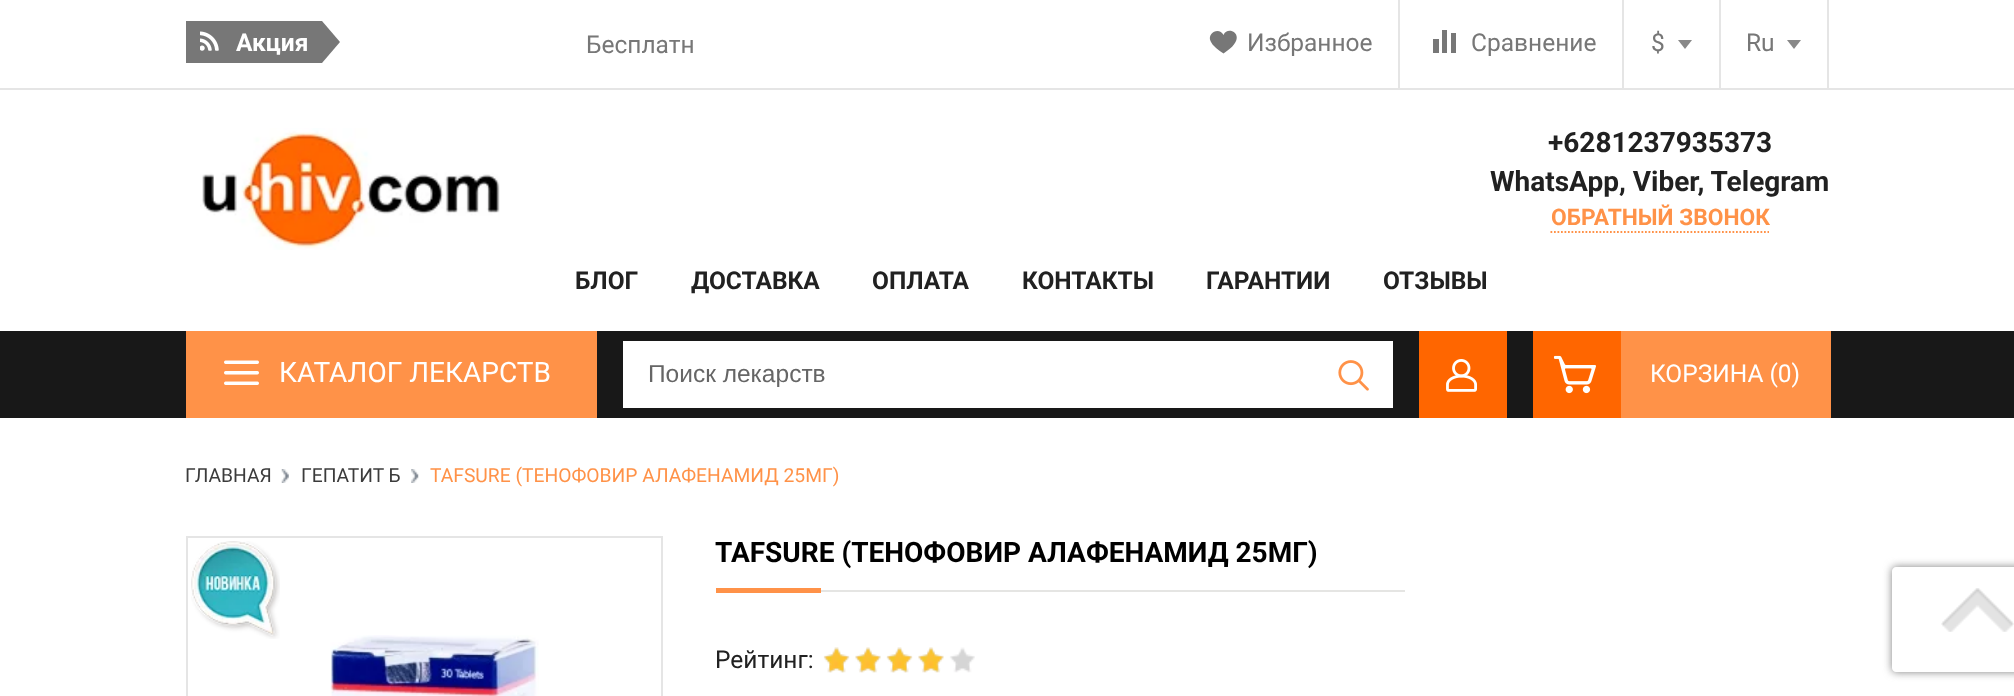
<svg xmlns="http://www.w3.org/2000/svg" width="2014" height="696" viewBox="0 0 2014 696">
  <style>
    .t1 { font: bold 24.5px Roboto; fill: #fff; }
    .t2 { font: 24.5px Roboto; fill: #777; }
    .t3 { font: bold 28px Roboto; fill: #212121; }
    .t4 { font: bold 22.75px Roboto; fill: #ff9248; }
    .t5 { font: bold 24.5px Roboto; fill: #212121; }
    .t6 { font: 28px Roboto; fill: #fff; }
    .t7 { font: 24.5px Liberation Sans; fill: #666; }
    .t8 { font: 24.5px Roboto; fill: #fff; }
    .t9 { font: 19.25px Roboto; fill: #3b3b3b; }
    .t10 { font: 19.25px Roboto; fill: #ff9248; }
    .t11 { font: bold 28px Roboto; fill: #000; }
    .t12 { font: 24.5px Roboto; fill: #212121; }
  </style>
  <defs>
    <clipPath id="clip1"><path d="M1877 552H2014V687H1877ZM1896 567H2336C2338 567 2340 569 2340 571V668C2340 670 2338 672 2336 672H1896C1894 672 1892 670 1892 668V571C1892 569 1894 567 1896 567Z" clip-rule="evenodd"/></clipPath>
  </defs>
  <rect width="100%" height="100%" fill="#fff"/>
  <rect x="0" y="88" width="2014" height="2" fill="#e5e5e5"/>
  <rect x="186" y="21" width="136" height="42" fill="#777"/>
  <image x="200" y="31" width="19" height="20" href="images/1.png"/>
  <text x="236" y="51" class="t1">Акция</text>
  <path d="M322 63V21L340 42Z" fill="#777"/>
  <text x="586" y="53" class="t2">Бесплатн</text>
  <rect x="1398" y="0" width="2" height="88" fill="#e5e5e5"/>
  <text x="1247" y="51" class="t2">Избранное</text>
  <path d="M1223.5 35C1219.5 26.5 1207 32.5 1210.5 41C1212.5 46 1219 50.5 1223.5 53.5C1251 36.5 1228 24 1223.5 35Z" fill="#777"/>
  <rect x="1622" y="0" width="2" height="88" fill="#e5e5e5"/>
  <rect x="1433" y="39" width="6" height="14" fill="#777"/>
  <rect x="1442" y="30" width="5" height="23" fill="#777"/>
  <rect x="1451" y="33" width="5" height="20" fill="#777"/>
  <text x="1471" y="51" class="t2">Сравнение</text>
  <rect x="1719" y="0" width="2" height="88" fill="#e5e5e5"/>
  <text x="1651" y="51" class="t2">$</text>
  <path d="M1678 40H1692L1685 49Z" fill="#888"/>
  <rect x="1827" y="0" width="2" height="88" fill="#e5e5e5"/>
  <text x="1746" y="51" class="t2">Ru</text>
  <path d="M1787 40H1801L1794 49Z" fill="#888"/>
  <image x="200" y="128" width="300" height="122" href="images/2.png"/>
  <text x="1548" y="152" class="t3">+6281237935373</text>
  <text x="1490" y="191" class="t3">WhatsApp, Viber, Telegram</text>
  <text x="1551" y="225" class="t4">ОБРАТНЫЙ ЗВОНОК</text>
  <path d="M1550.5 232H1769" fill="none" stroke="#ff9248" stroke-width="1.8" stroke-dasharray="1.75 1.75"/>
  <text x="575" y="289" class="t5">БЛОГ</text>
  <text x="691" y="289" class="t5">ДОСТАВКА</text>
  <text x="872" y="289" class="t5">ОПЛАТА</text>
  <text x="1022" y="289" class="t5">КОНТАКТЫ</text>
  <text x="1206" y="289" class="t5">ГАРАНТИИ</text>
  <text x="1383" y="289" class="t5">ОТЗЫВЫ</text>
  <rect x="0" y="331" width="2014" height="87" fill="#181818"/>
  <rect x="186" y="331" width="411" height="87" fill="#ff9248"/>
  <image x="224" y="360" width="35" height="25" href="images/3.png"/>
  <text x="279" y="382" class="t6">КАТАЛОГ ЛЕКАРСТВ</text>
  <rect x="623" y="341" width="770" height="67" fill="#fff"/>
  <text x="648" y="382" class="t7">Поиск лекарств</text>
  <image x="1338" y="360" width="31" height="31" href="images/4.png"/>
  <rect x="1419" y="331" width="88" height="87" fill="#f60"/>
  <image x="1446" y="359" width="31" height="33" href="images/5.png"/>
  <rect x="1621" y="331" width="210" height="87" fill="#ff9248"/>
  <rect x="1533" y="331" width="88" height="87" fill="#f60"/>
  <image x="1553" y="355" width="43" height="39" href="images/6.png"/>
  <text x="1650" y="382" class="t8">КОРЗИНА (0)</text>
  <image x="281" y="469" width="8" height="14" href="images/7.png"/>
  <text x="185" y="482" class="t9">ГЛАВНАЯ</text>
  <image x="411" y="469" width="8" height="14" href="images/8.png"/>
  <text x="301" y="482" class="t9">ГЕПАТИТ Б</text>
  <text x="430" y="482" class="t10">TAFSURE (ТЕНОФОВИР АЛАФЕНАМИД 25МГ)</text>
  <rect x="187" y="537" width="475" height="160" fill="none" stroke="#e5e5e5" stroke-width="2"/>
  <image x="191" y="541" width="89" height="98" href="images/9.png"/>
  <image x="330" y="635" width="209" height="61" href="images/10.png"/>
  <rect x="821" y="590" width="584" height="2" fill="#e5e5e3"/>
  <text x="715" y="562" class="t11">TAFSURE (ТЕНОФОВИР АЛАФЕНАМИД 25МГ)</text>
  <rect x="716" y="588" width="105" height="5" fill="#ff9248"/>
  <text x="715" y="668" class="t12">Рейтинг:</text>
  <image x="824" y="647" width="151" height="26" href="images/11.png"/>
  <image x="823" y="647" width="121" height="26" href="images/12.png"/>
  <g clip-path="url(#clip1)">
    <rect x="1892" y="567" width="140" height="105" rx="4" fill="#808080" filter="blur(4.5px)"/>
  </g>
  <image x="1941" y="588" width="73" height="44" href="images/13.png"/>
</svg>
